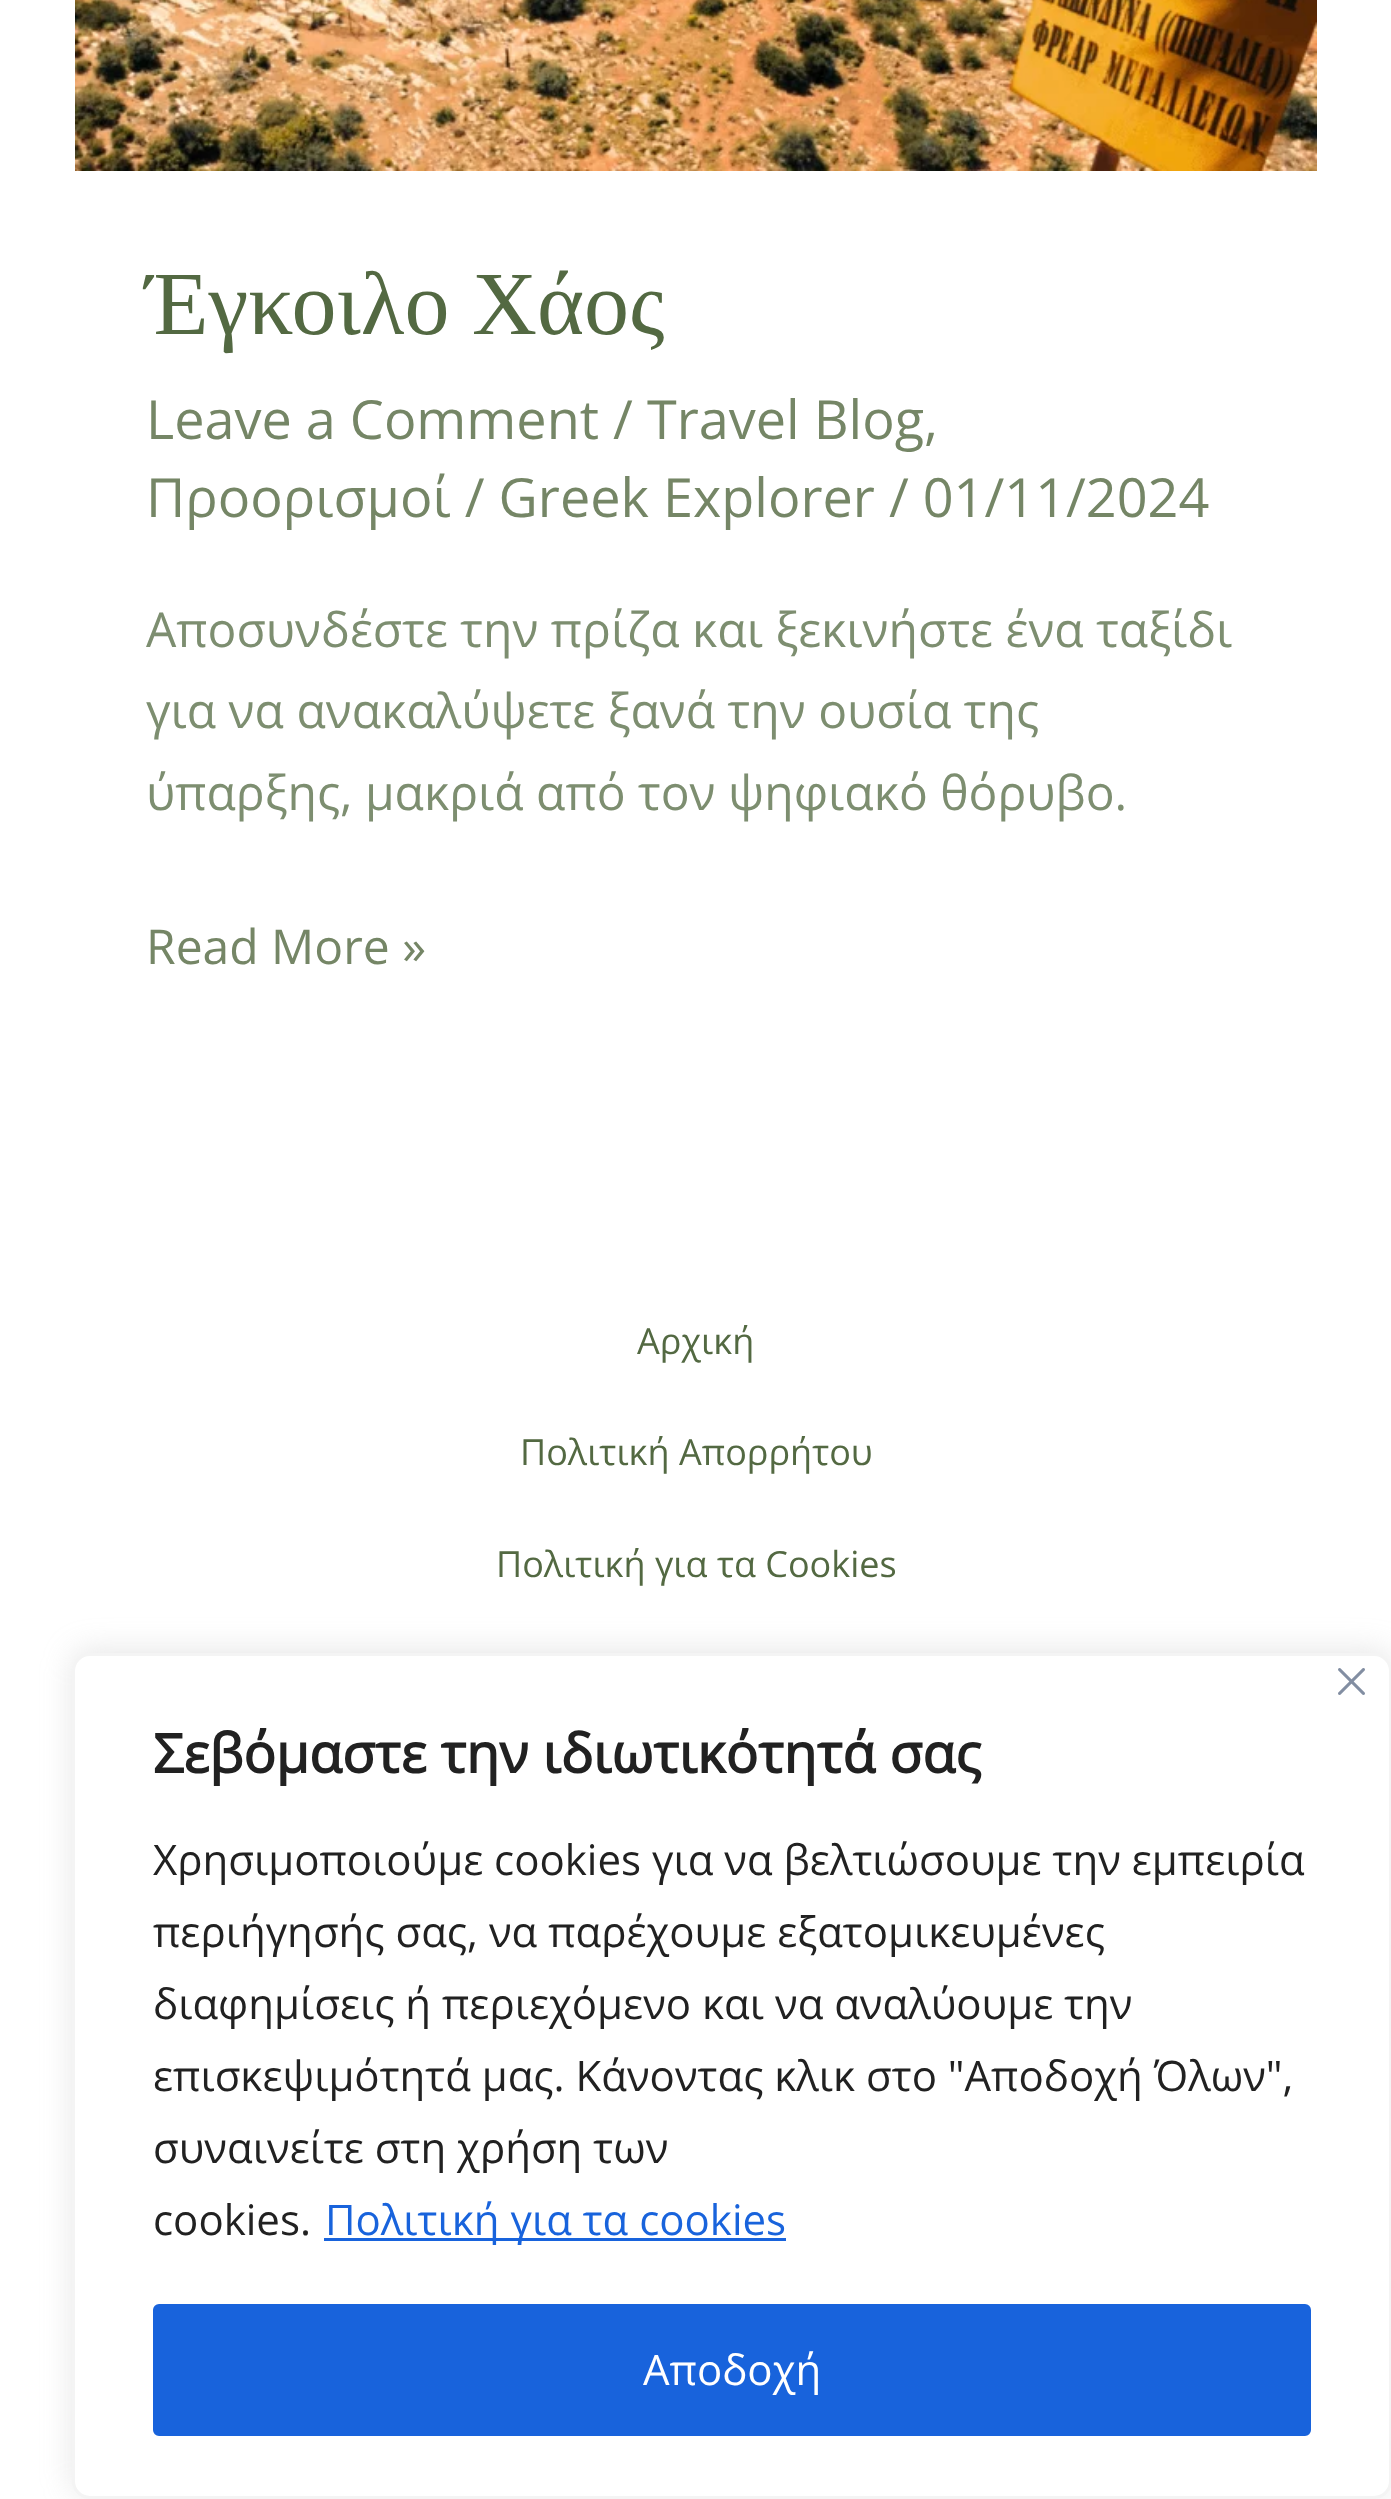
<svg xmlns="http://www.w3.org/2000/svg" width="1391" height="2499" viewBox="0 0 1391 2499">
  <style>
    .t1 { font: 90px Liberation Serif; fill: #536942; }
    .t2 { font: 54px Open Sans; fill: #758666; }
    .t3 { font: 48px Open Sans; fill: #7d8e70; }
    .t4 { font: 48px Open Sans; fill: #758666; }
    .t5 { font: 36px Open Sans; fill: #536942; }
    .t6 { font: bold 54px Open Sans; fill: #212121; }
    .t7 { font: 42px Open Sans; fill: #212121; }
    .t8 { font: 42px Open Sans; fill: #1863dc; }
    .t9 { font: 42px Open Sans; fill: #fff; }
  </style>
  <rect width="100%" height="100%" fill="#fff"/>
  <image x="75" y="0" width="1242" height="171" href="images/1.png"/>
  <text x="146" y="334" class="t1">Έγκοιλο Χάος</text>
  <text x="146" y="439" class="t2">Leave a Comment / Travel Blog,</text>
  <text x="146" y="517" class="t2">Προορισμοί / Greek Explorer / 01/11/2024</text>
  <text x="146" y="647" class="t3">Αποσυνδέστε την πρίζα και ξεκινήστε ένα ταξίδι</text>
  <text x="146" y="728" class="t3">για να ανακαλύψετε ξανά την ουσία της</text>
  <text x="146" y="810" class="t3">ύπαρξης, μακριά από τον ψηφιακό θόρυβο.</text>
  <text x="146" y="964" class="t4">Read More »</text>
  <text x="637" y="1354" class="t5">Αρχική</text>
  <text x="520" y="1465" class="t5">Πολιτική Απορρήτου</text>
  <text x="496" y="1577" class="t5">Πολιτική για τα Cookies</text>
  <rect x="72" y="1650" width="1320" height="846" rx="18" fill="#acabab4d" filter="blur(15px)"/>
  <rect x="73.5" y="1654.5" width="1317" height="843" rx="16.5" fill="#fff" stroke="#f4f4f4" stroke-width="3"/>
  <image x="1338" y="1668" width="27" height="27" href="images/2.png"/>
  <text x="153" y="1773" class="t6">Σεβόμαστε την ιδιωτικότητά σας</text>
  <text x="153" y="1875" class="t7">Χρησιμοποιούμε cookies για να βελτιώσουμε την εμπειρία</text>
  <text x="153" y="1947" class="t7">περιήγησής σας, να παρέχουμε εξατομικευμένες</text>
  <text x="153" y="2019" class="t7">διαφημίσεις ή περιεχόμενο και να αναλύουμε την</text>
  <text x="153" y="2091" class="t7">επισκεψιμότητά μας. Κάνοντας κλικ στο "Αποδοχή Όλων",</text>
  <text x="153" y="2163" class="t7">συναινείτε στη χρήση των</text>
  <text x="153" y="2235" class="t7">cookies.</text>
  <rect x="324" y="2238" width="462" height="3" fill="#1863dc"/>
  <text x="325" y="2235" class="t8">Πολιτική για τα cookies</text>
  <rect x="156" y="2307" width="1152" height="126" rx="3" fill="#1863dc" stroke="#1863dc" stroke-width="6"/>
  <text x="643" y="2385" class="t9">Αποδοχή</text>
</svg>
